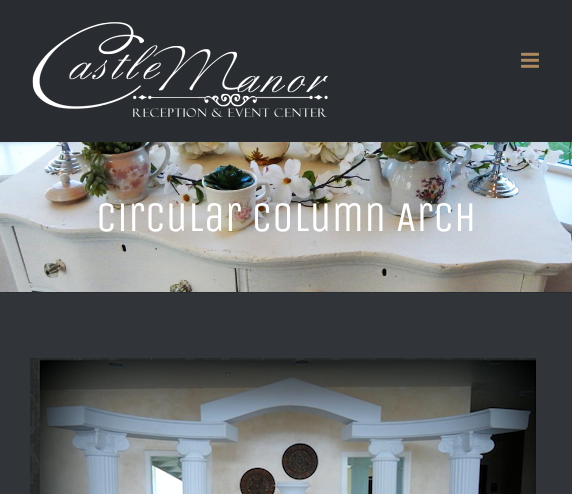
<svg xmlns="http://www.w3.org/2000/svg" width="572" height="494" viewBox="0 0 572 494">
  <style>
    .t1 { font: 42.25px Unica One; fill: #fff; }
  </style>
  <rect width="100%" height="100%" fill="#313539"/>
  <rect x="0" y="0" width="572" height="142" fill="#292c30"/>
  <image x="32" y="22" width="296" height="95" href="images/1.png"/>
  <image x="521" y="52" width="18" height="16" href="images/2.png"/>
  <image x="0" y="142" width="572" height="150" href="images/3.png"/>
  <rect x="0" y="292" width="572" height="1" fill="#292c30"/>
  <text x="96" y="231" class="t1">Circular Column Arch</text>
  <image x="30" y="358" width="506" height="136" href="images/4.png"/>
</svg>
